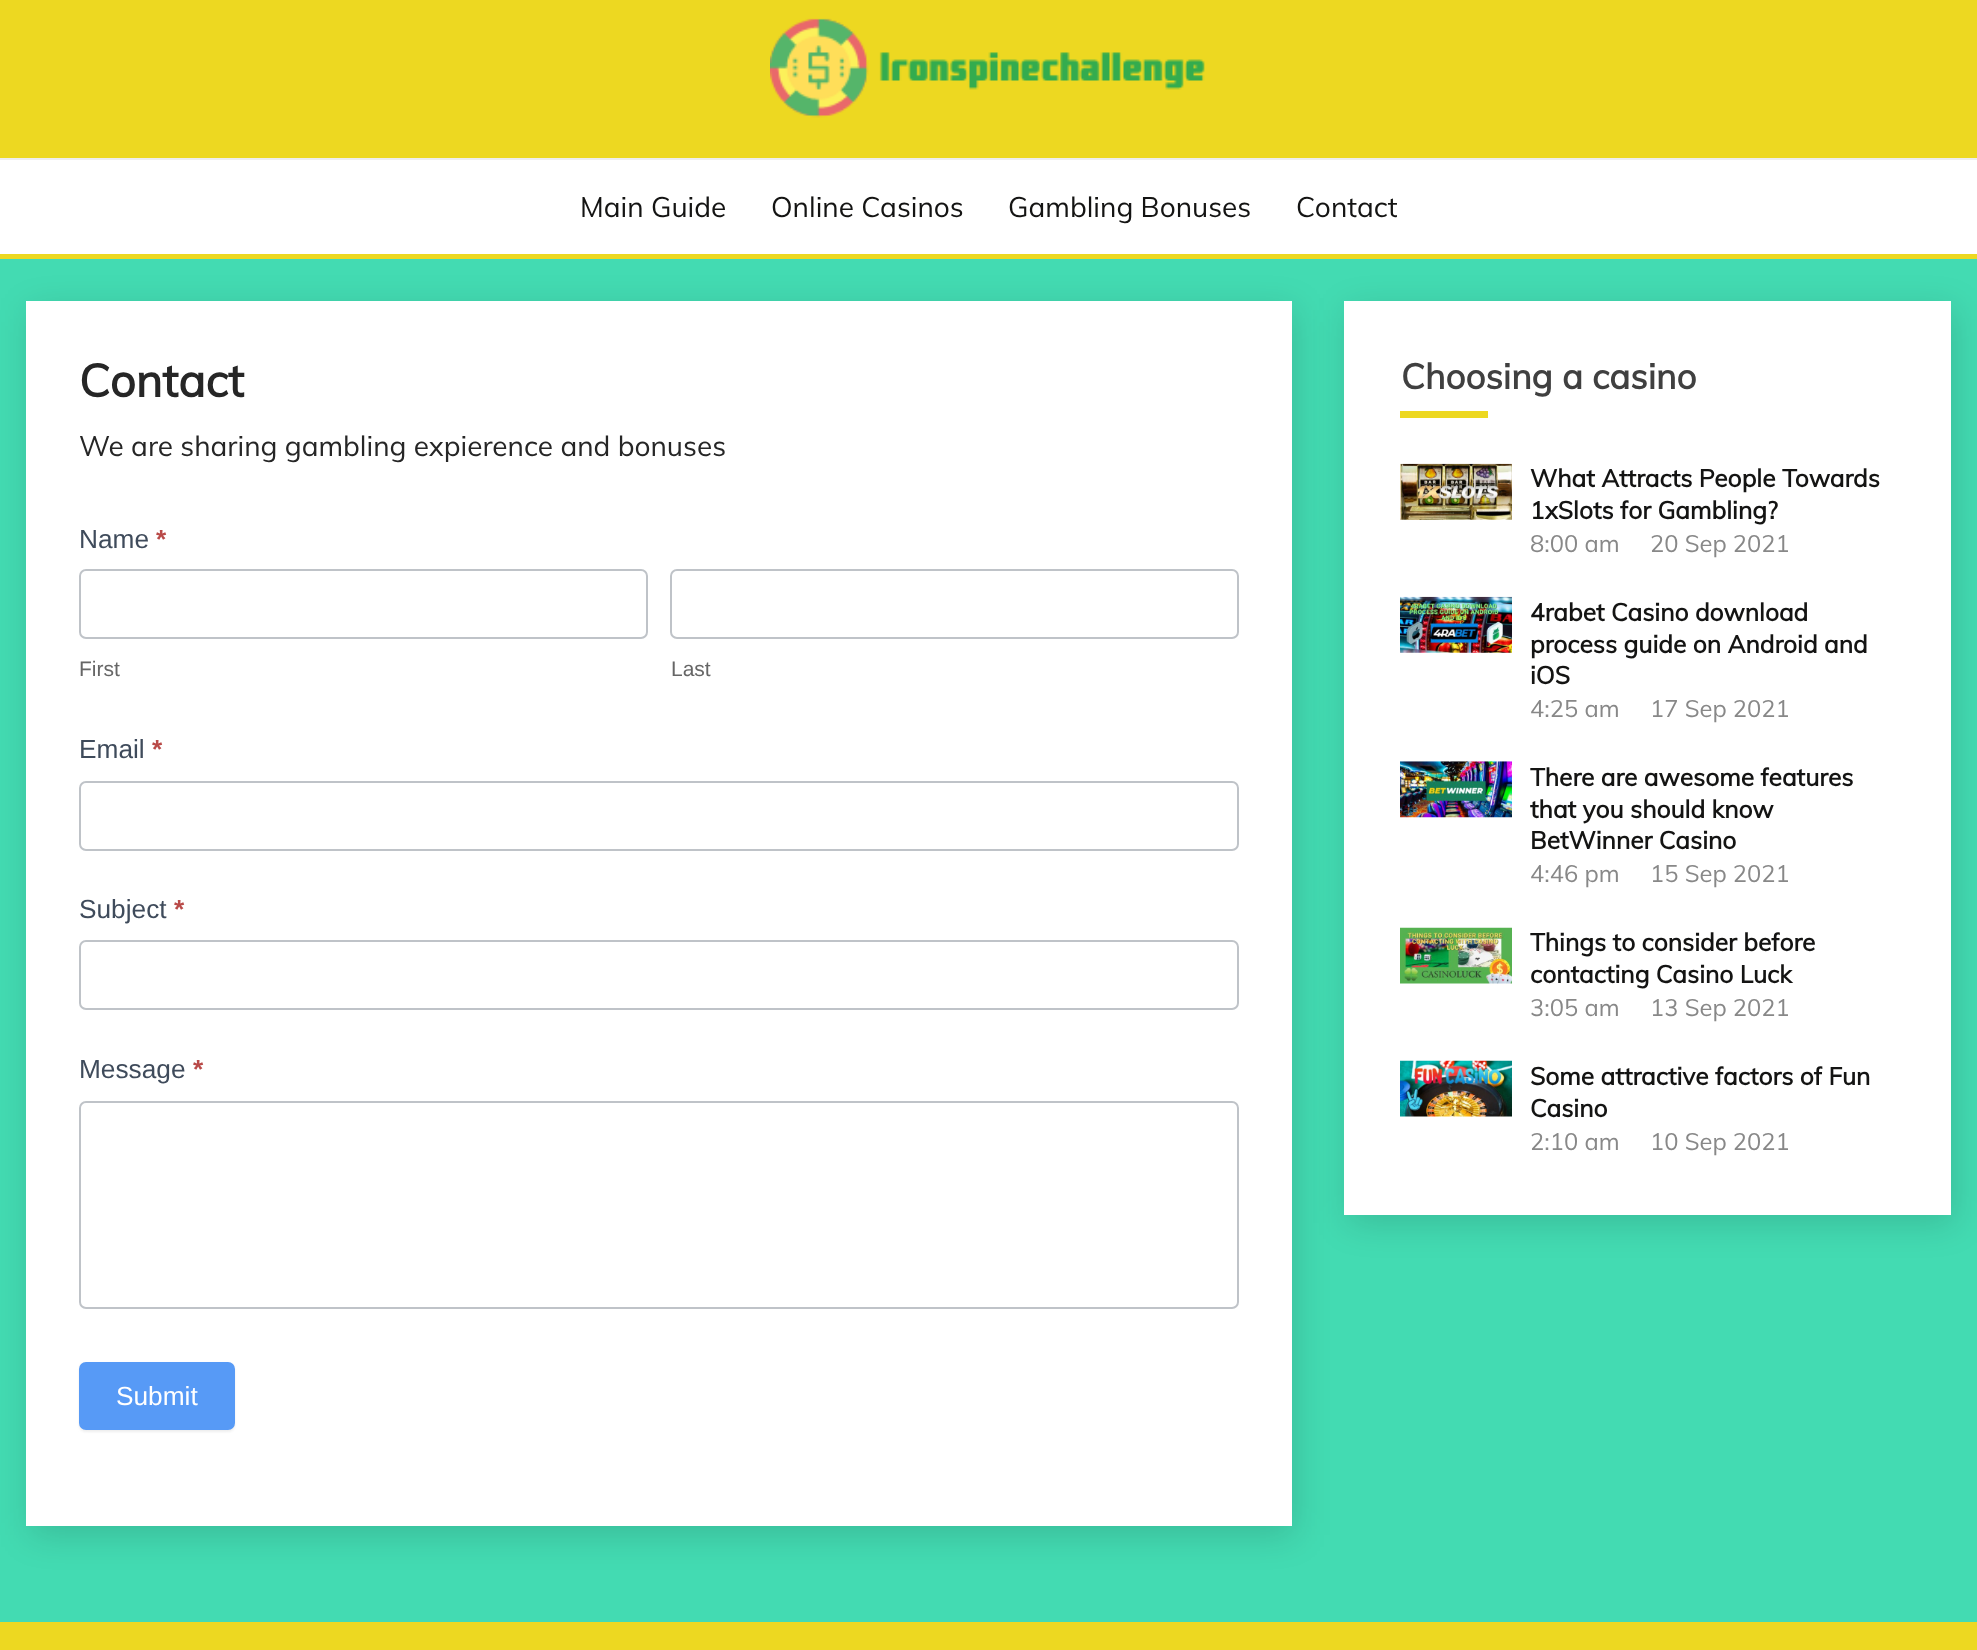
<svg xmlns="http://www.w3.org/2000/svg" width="1977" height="1650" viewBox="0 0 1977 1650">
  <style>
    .t1 { font: 28px Muli; fill: #141413; }
    .t2 { font: bold 45.5px Muli; fill: #262626; }
    .t3 { font: 28px Muli; fill: #262626; }
    .t4 { font: 26.25px Liberation Sans; fill: #3f4b5b; }
    .t5 { font: bold 26.25px Liberation Sans; fill: #b94a48; }
    .t6 { font: 21px Liberation Sans; fill: #666; }
    .t7 { font: 26.25px Liberation Sans; fill: #fff; }
    .t8 { font: bold 35px Muli; fill: #404040; }
    .t9 { font: bold 24.5px Muli; fill: #141413; }
    .t10 { font: 23.75px Muli; fill: #888; }
  </style>
  <rect width="100%" height="100%" fill="#43dbb2"/>
  <rect x="0" y="160" width="1977" height="94" fill="#fff"/>
  <rect x="0" y="0" width="1977" height="158" fill="#edd821"/>
  <rect x="0" y="158" width="1977" height="2" fill="#eee"/>
  <image x="770" y="18" width="435" height="100" href="images/1.png"/>
  <rect x="30" y="310" width="1265" height="1225" fill="#00000024" filter="blur(17.5px)"/>
  <rect x="1348" y="310" width="607" height="913" fill="#00000024" filter="blur(17.5px)"/>
  <rect x="0" y="254" width="1977" height="5" fill="#edd821"/>
  <text x="580" y="217" class="t1">Main Guide</text>
  <text x="771" y="217" class="t1">Online Casinos</text>
  <text x="1008" y="217" class="t1">Gambling Bonuses</text>
  <text x="1296" y="217" class="t1">Contact</text>
  <rect x="26" y="301" width="1266" height="1225" fill="#fff"/>
  <text x="79" y="397" class="t2">Contact</text>
  <text x="79" y="456" class="t3">We are sharing gambling expierence and bonuses</text>
  <text x="79" y="548" class="t4">Name</text>
  <text x="156" y="548" class="t5">*</text>
  <rect x="80" y="570" width="567" height="68" rx="6" fill="none" stroke="#bfc3c8" stroke-width="2"/>
  <text x="79" y="676" class="t6">First</text>
  <rect x="671" y="570" width="567" height="68" rx="6" fill="none" stroke="#bfc3c8" stroke-width="2"/>
  <text x="671" y="676" class="t6">Last</text>
  <text x="79" y="758" class="t4">Email</text>
  <text x="152" y="758" class="t5">*</text>
  <rect x="80" y="782" width="1158" height="68" rx="6" fill="none" stroke="#bfc3c8" stroke-width="2"/>
  <text x="79" y="918" class="t4">Subject</text>
  <text x="174" y="918" class="t5">*</text>
  <rect x="80" y="941" width="1158" height="68" rx="6" fill="none" stroke="#bfc3c8" stroke-width="2"/>
  <text x="79" y="1078" class="t4">Message</text>
  <text x="193" y="1078" class="t5">*</text>
  <rect x="80" y="1102" width="1158" height="206" rx="6" fill="none" stroke="#bfc3c8" stroke-width="2"/>
  <rect x="79" y="1363" width="156" height="69" rx="7" fill="#eee" filter="blur(1px)"/>
  <rect x="80" y="1363" width="154" height="66" rx="6" fill="#579af6" stroke="#579af6" stroke-width="2"/>
  <text x="116" y="1405" class="t7">Submit</text>
  <rect x="1344" y="301" width="607" height="914" fill="#fff"/>
  <text x="1401" y="389" class="t8">Choosing a casino</text>
  <rect x="1400" y="411" width="88" height="7" fill="#edd821"/>
  <image x="1400" y="463" width="112" height="57" href="images/2.png"/>
  <text x="1530" y="487" class="t9">What Attracts People Towards</text>
  <text x="1530" y="519" class="t9">1xSlots for Gambling?</text>
  <text x="1530" y="552" class="t10">8:00 am</text>
  <text x="1650" y="552" class="t10">20 Sep 2021</text>
  <image x="1400" y="596" width="112" height="57" href="images/3.png"/>
  <text x="1530" y="621" class="t9">4rabet Casino download</text>
  <text x="1530" y="653" class="t9">process guide on Android and</text>
  <text x="1530" y="684" class="t9">iOS</text>
  <text x="1530" y="717" class="t10">4:25 am</text>
  <text x="1650" y="717" class="t10">17 Sep 2021</text>
  <image x="1400" y="761" width="112" height="57" href="images/4.png"/>
  <text x="1530" y="786" class="t9">There are awesome features</text>
  <text x="1530" y="818" class="t9">that you should know</text>
  <text x="1530" y="849" class="t9">BetWinner Casino</text>
  <text x="1530" y="882" class="t10">4:46 pm</text>
  <text x="1650" y="882" class="t10">15 Sep 2021</text>
  <image x="1400" y="927" width="112" height="57" href="images/5.png"/>
  <text x="1530" y="951" class="t9">Things to consider before</text>
  <text x="1530" y="983" class="t9">contacting Casino Luck</text>
  <text x="1530" y="1016" class="t10">3:05 am</text>
  <text x="1650" y="1016" class="t10">13 Sep 2021</text>
  <image x="1400" y="1060" width="112" height="57" href="images/6.png"/>
  <text x="1530" y="1085" class="t9">Some attractive factors of Fun</text>
  <text x="1530" y="1117" class="t9">Casino</text>
  <text x="1530" y="1150" class="t10">2:10 am</text>
  <text x="1650" y="1150" class="t10">10 Sep 2021</text>
  <rect x="0" y="1622" width="1977" height="28" fill="#edd821"/>
</svg>
